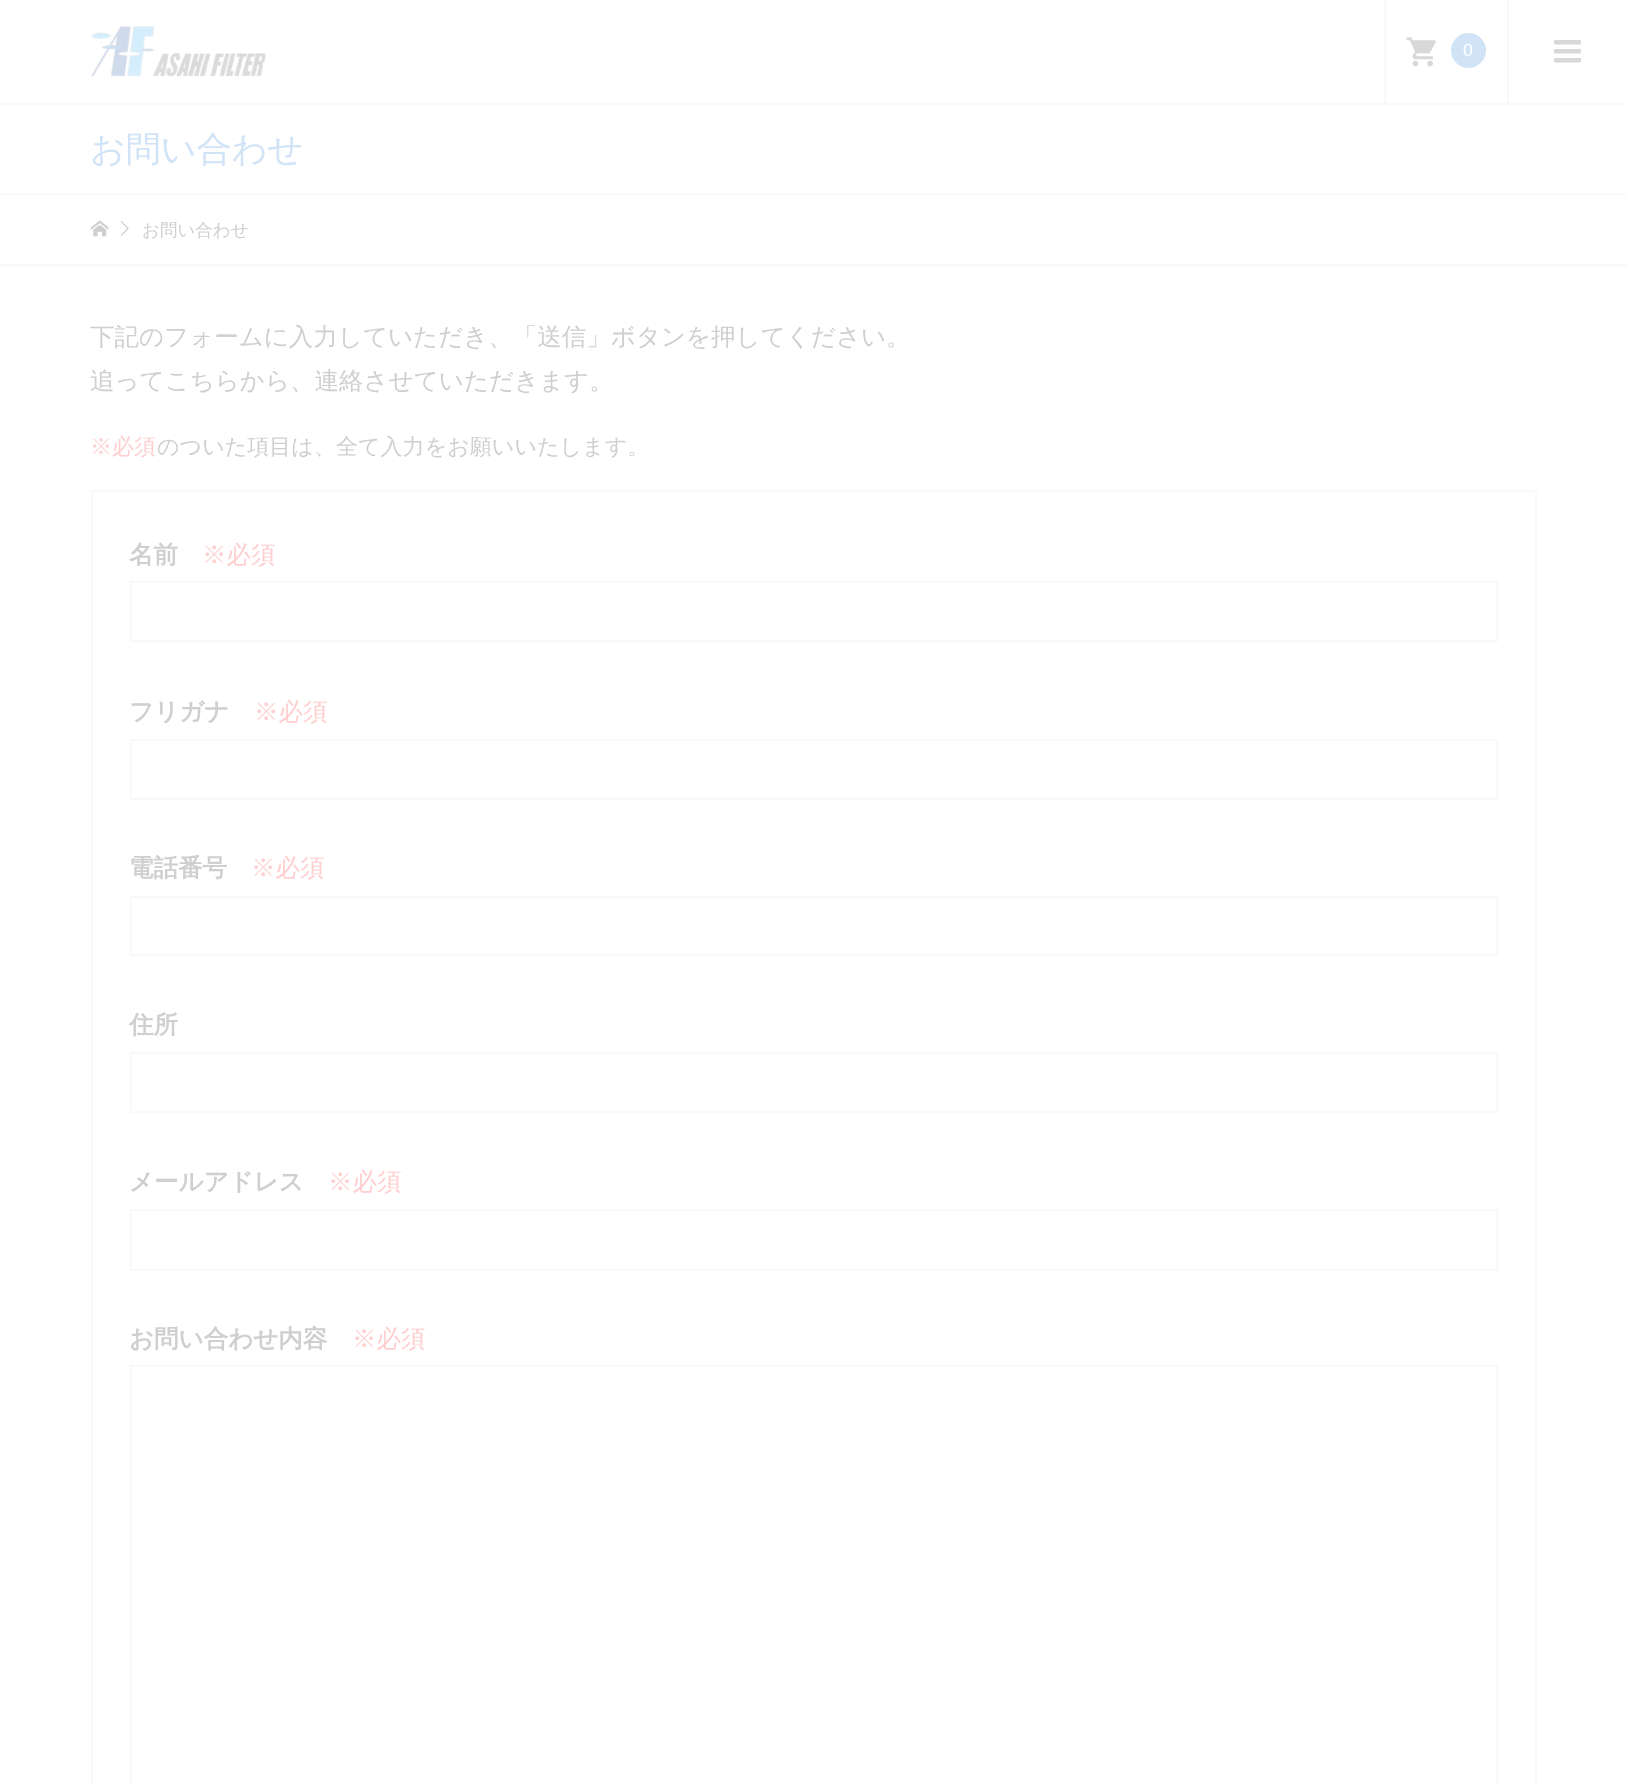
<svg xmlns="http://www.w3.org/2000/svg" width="1627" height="1784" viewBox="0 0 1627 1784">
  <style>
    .t1 { font: 17.5px Liberation Sans; fill: #fff; }
    .t2 { font: 500 35px WenQuanYi Zen Hei; fill: #d1e3f6; }
    .t3 { font: 500 17.5px WenQuanYi Zen Hei; fill: #cfcfcf; }
    .t4 { font: 500 24.5px WenQuanYi Zen Hei; fill: #cfcfcf; }
    .t5 { font: 500 22.05px WenQuanYi Zen Hei; fill: #ffcfcf; }
    .t6 { font: 500 22.05px WenQuanYi Zen Hei; fill: #cfcfcf; }
    .t7 { font: bold 24.5px WenQuanYi Zen Hei; fill: #cfcfcf; }
    .t8 { font: 500 24.5px WenQuanYi Zen Hei; fill: #ffcfcf; }
  </style>
  <rect width="100%" height="100%" fill="#fff"/>
  <rect x="0" y="103" width="1627" height="2" fill="#f9f9f9"/>
  <image x="91" y="26" width="175" height="51" href="images/1.png"/>
  <rect x="1384" y="0" width="2" height="103" fill="#f9f9f9"/>
  <image x="1406" y="37" width="30" height="30" href="images/2.png"/>
  <circle cx="1468.5" cy="50.5" r="17.5" fill="#d1e3f6"/>
  <text x="1463" y="56" class="t1">0</text>
  <rect x="1507" y="0" width="2" height="103" fill="#f9f9f9"/>
  <image x="1554" y="40" width="27" height="23" href="images/3.png"/>
  <rect x="0" y="193" width="1627" height="2" fill="#f9f9f9"/>
  <text x="90" y="161" class="t2">お問い合わせ</text>
  <rect x="0" y="264" width="1627" height="2" fill="#f9f9f9"/>
  <image x="91" y="220" width="18" height="17" href="images/4.png"/>
  <image x="120" y="220" width="9" height="16" href="images/5.png"/>
  <text x="142" y="236" class="t3">お問い合わせ</text>
  <text x="90" y="345" class="t4">下記のフォームに入力していただき、「送信」ボタンを押してください。</text>
  <text x="90" y="389" class="t4">追ってこちらから、連絡させていただきます。</text>
  <text x="90" y="454" class="t5">※必須</text>
  <text x="157" y="454" class="t6">のついた項目は、全て入力をお願いいたします。</text>
  <rect x="92" y="491" width="1444" height="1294" fill="none" stroke="#f9f9f9" stroke-width="2"/>
  <text x="129" y="563" class="t7">名前</text>
  <text x="202" y="563" class="t8">※必須</text>
  <rect x="131" y="582" width="1366" height="59" fill="none" stroke="#f9f9f9" stroke-width="2"/>
  <text x="129" y="720" class="t7">フリガナ</text>
  <text x="254" y="720" class="t8">※必須</text>
  <rect x="131" y="740" width="1366" height="59" fill="none" stroke="#f9f9f9" stroke-width="2"/>
  <text x="129" y="876" class="t7">電話番号</text>
  <text x="251" y="876" class="t8">※必須</text>
  <rect x="131" y="897" width="1366" height="58" fill="none" stroke="#f9f9f9" stroke-width="2"/>
  <text x="129" y="1033" class="t7">住所</text>
  <rect x="131" y="1053" width="1366" height="59" fill="none" stroke="#f9f9f9" stroke-width="2"/>
  <text x="129" y="1190" class="t7">メールアドレス</text>
  <text x="328" y="1190" class="t8">※必須</text>
  <rect x="131" y="1210" width="1366" height="60" fill="none" stroke="#f9f9f9" stroke-width="2"/>
  <text x="129" y="1347" class="t7">お問い合わせ内容</text>
  <text x="352" y="1347" class="t8">※必須</text>
  <rect x="131" y="1366" width="1366" height="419" fill="none" stroke="#f9f9f9" stroke-width="2"/>
</svg>
